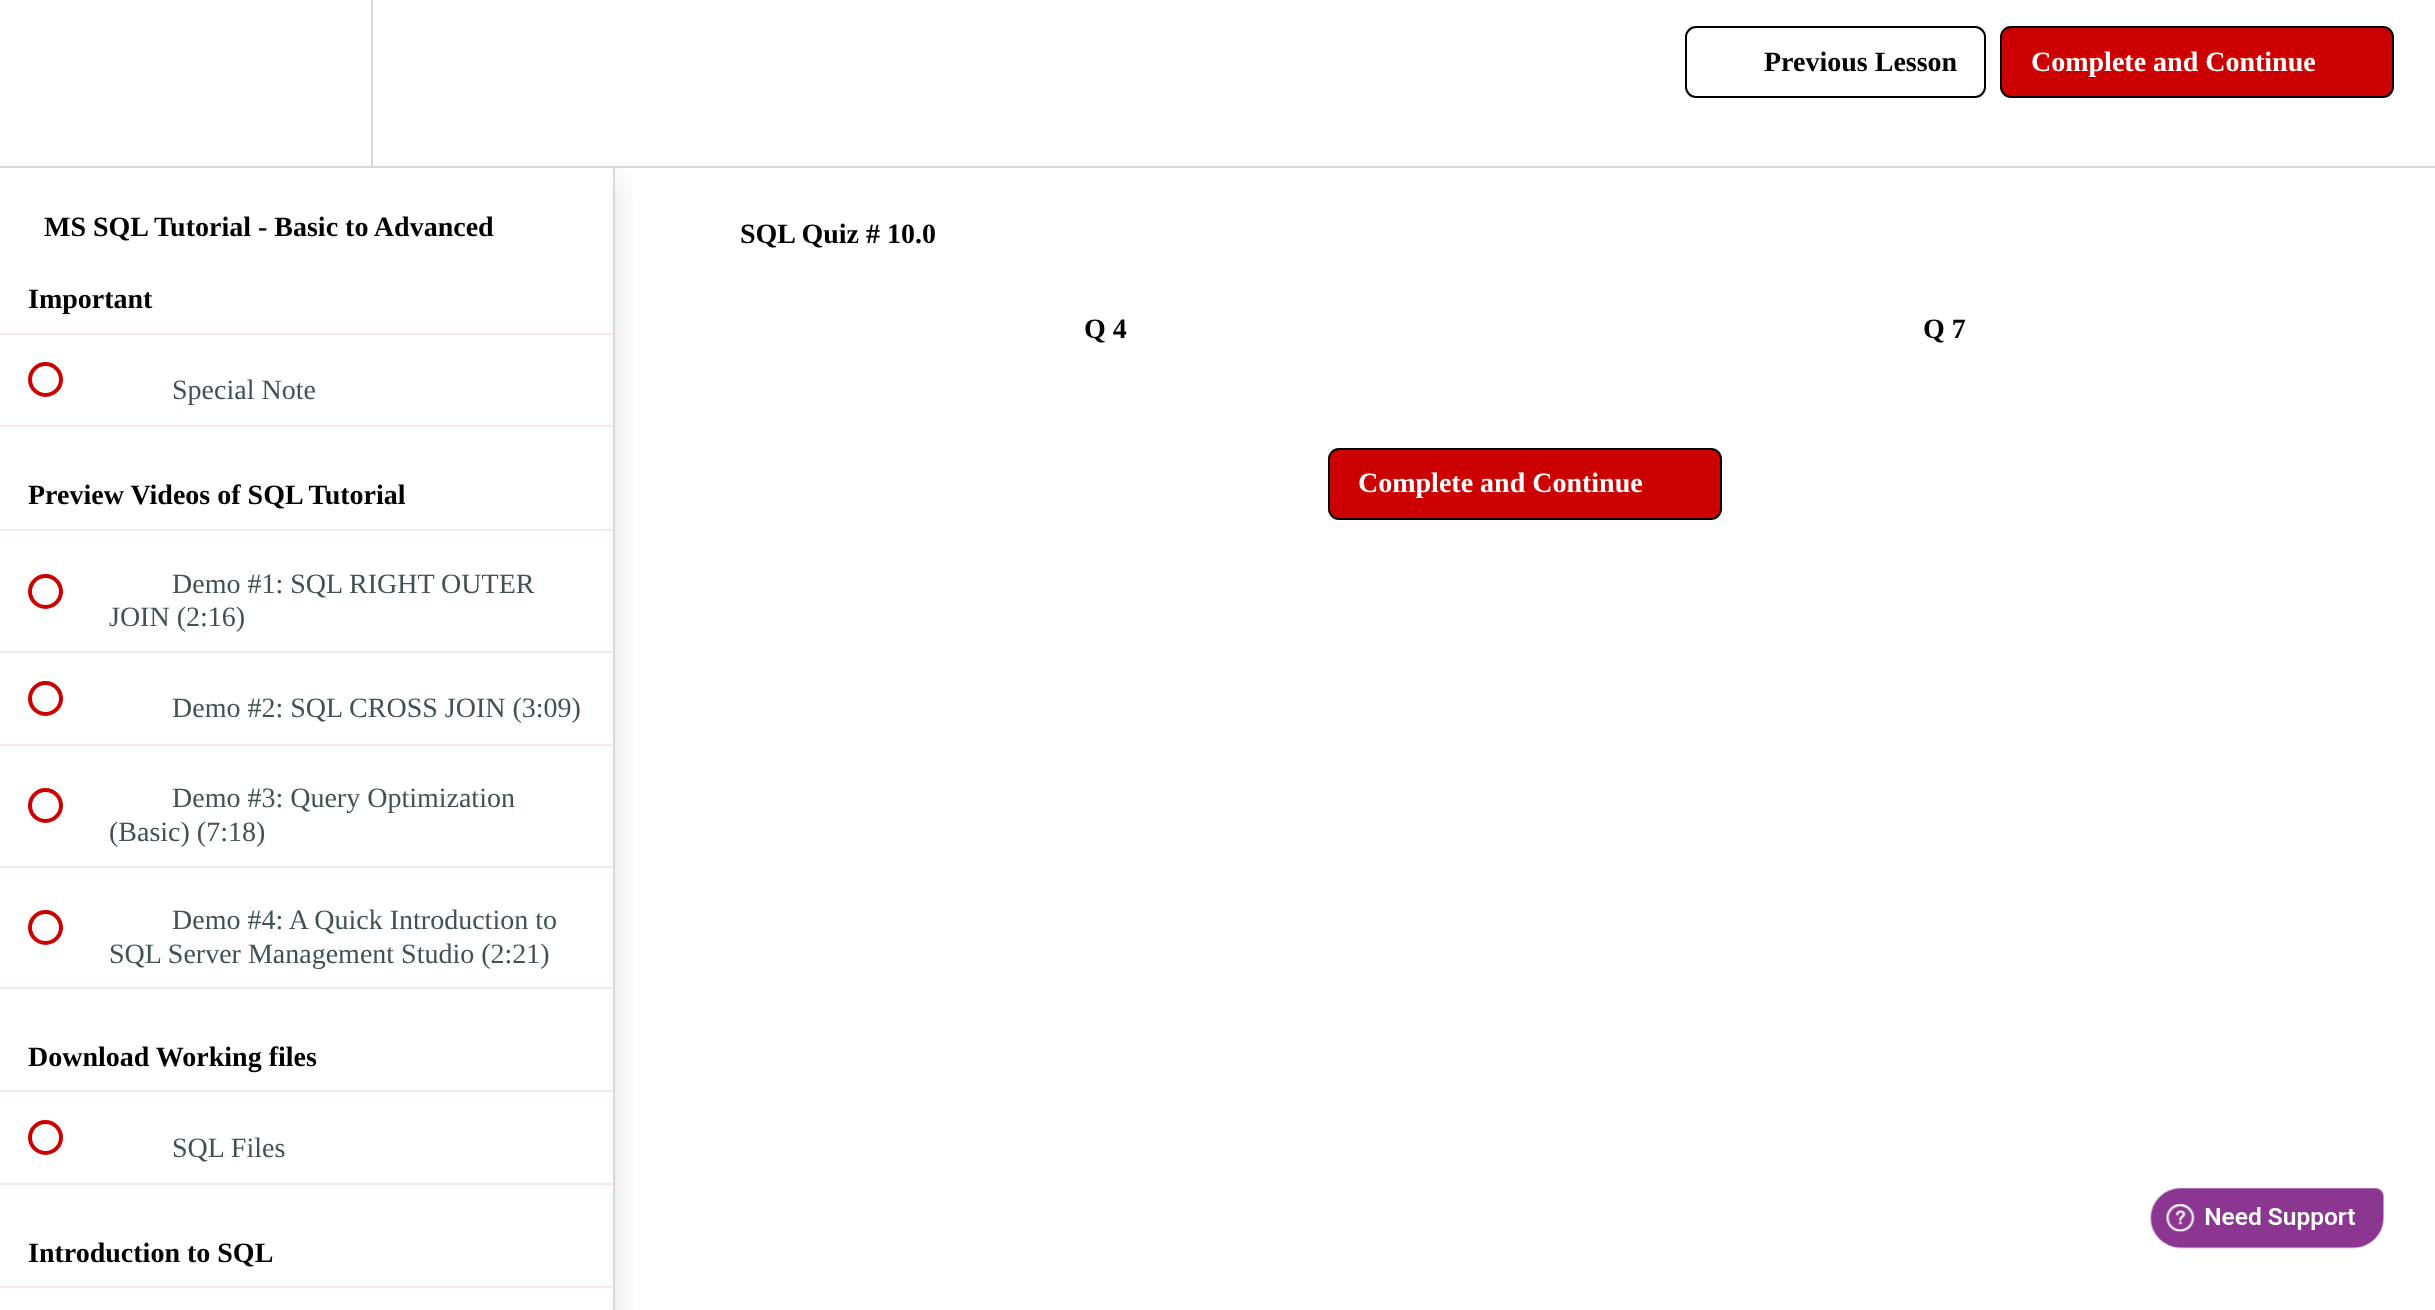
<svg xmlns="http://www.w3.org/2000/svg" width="2435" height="1310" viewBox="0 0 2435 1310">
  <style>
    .t1 { font: bold 28px Liberation Serif; fill: #000; }
    .t2 { font: bold 28px Liberation Serif; fill: #fff; }
    .t3 { font: 28px Liberation Serif; fill: #425252; }
  </style>
  <defs>
    <clipPath id="clip1"><rect x="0" y="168" width="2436" height="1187"/></clipPath>
    <clipPath id="clip2"><rect x="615" y="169" width="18" height="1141"/></clipPath>
  </defs>
  <rect width="100%" height="100%" fill="#fff"/>
  <g clip-path="url(#clip1)">
    <g clip-path="url(#clip2)">
      <rect x="0" y="179" width="614" height="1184" fill="#20272d26" filter="blur(17.5px)"/>
    </g>
  </g>
  <rect x="0" y="166" width="2435" height="2" fill="#d7dadb"/>
  <rect x="371" y="0" width="2" height="166" fill="#d7dadb"/>
  <rect x="1686" y="27" width="299" height="70" rx="10" fill="none" stroke="#000" stroke-width="2"/>
  <text x="1764" y="71" class="t1">Previous Lesson</text>
  <rect x="2001" y="27" width="392" height="70" rx="10" fill="#c00" stroke="#000" stroke-width="2"/>
  <text x="2031" y="71" class="t2">Complete and Continue</text>
  <rect x="613" y="168" width="2" height="1142" fill="#d7dadb"/>
  <text x="44" y="236" class="t1">MS SQL Tutorial - Basic to Advanced</text>
  <rect x="0" y="333" width="613" height="2" fill="#fae6e6"/>
  <text x="28" y="308" class="t1">Important</text>
  <rect x="0" y="425" width="613" height="2" fill="#fae6e6"/>
  <circle cx="45.5" cy="379.5" r="15.5" fill="none" stroke="#c00" stroke-width="4"/>
  <text x="172" y="399" class="t3">Special Note</text>
  <rect x="0" y="529" width="613" height="2" fill="#fae6e6"/>
  <text x="28" y="504" class="t1">Preview Videos of SQL Tutorial</text>
  <rect x="0" y="651" width="613" height="2" fill="#fae6e6"/>
  <circle cx="45.5" cy="591.5" r="15.5" fill="none" stroke="#c00" stroke-width="4"/>
  <text x="172" y="593" class="t3">Demo #1: SQL RIGHT OUTER</text>
  <text x="109" y="626" class="t3">JOIN (2:16)</text>
  <rect x="0" y="744" width="613" height="2" fill="#fae6e6"/>
  <circle cx="45.5" cy="698.5" r="15.5" fill="none" stroke="#c00" stroke-width="4"/>
  <text x="172" y="717" class="t3">Demo #2: SQL CROSS JOIN (3:09)</text>
  <rect x="0" y="866" width="613" height="2" fill="#fae6e6"/>
  <circle cx="45.5" cy="805.5" r="15.5" fill="none" stroke="#c00" stroke-width="4"/>
  <text x="172" y="807" class="t3">Demo #3: Query Optimization</text>
  <text x="109" y="841" class="t3">(Basic) (7:18)</text>
  <rect x="0" y="987" width="613" height="2" fill="#fae6e6"/>
  <circle cx="45.5" cy="927.5" r="15.5" fill="none" stroke="#c00" stroke-width="4"/>
  <text x="172" y="929" class="t3">Demo #4: A Quick Introduction to</text>
  <text x="109" y="963" class="t3">SQL Server Management Studio (2:21)</text>
  <rect x="0" y="1090" width="613" height="2" fill="#fae6e6"/>
  <text x="28" y="1066" class="t1">Download Working files</text>
  <rect x="0" y="1183" width="613" height="2" fill="#fae6e6"/>
  <circle cx="45.5" cy="1137.5" r="15.5" fill="none" stroke="#c00" stroke-width="4"/>
  <text x="172" y="1157" class="t3">SQL Files</text>
  <rect x="0" y="1286" width="613" height="2" fill="#fae6e6"/>
  <text x="28" y="1262" class="t1">Introduction to SQL</text>
  <text x="740" y="243" class="t1">SQL Quiz # 10.0</text>
  <text x="1084" y="338" class="t1">Q 4</text>
  <text x="1923" y="338" class="t1">Q 7</text>
  <rect x="1329" y="449" width="392" height="70" rx="10" fill="#c00" stroke="#000" stroke-width="2"/>
  <text x="1358" y="492" class="t2">Complete and Continue</text>
  <image x="2150" y="1188" width="234" height="61" href="images/1.png"/>
</svg>
